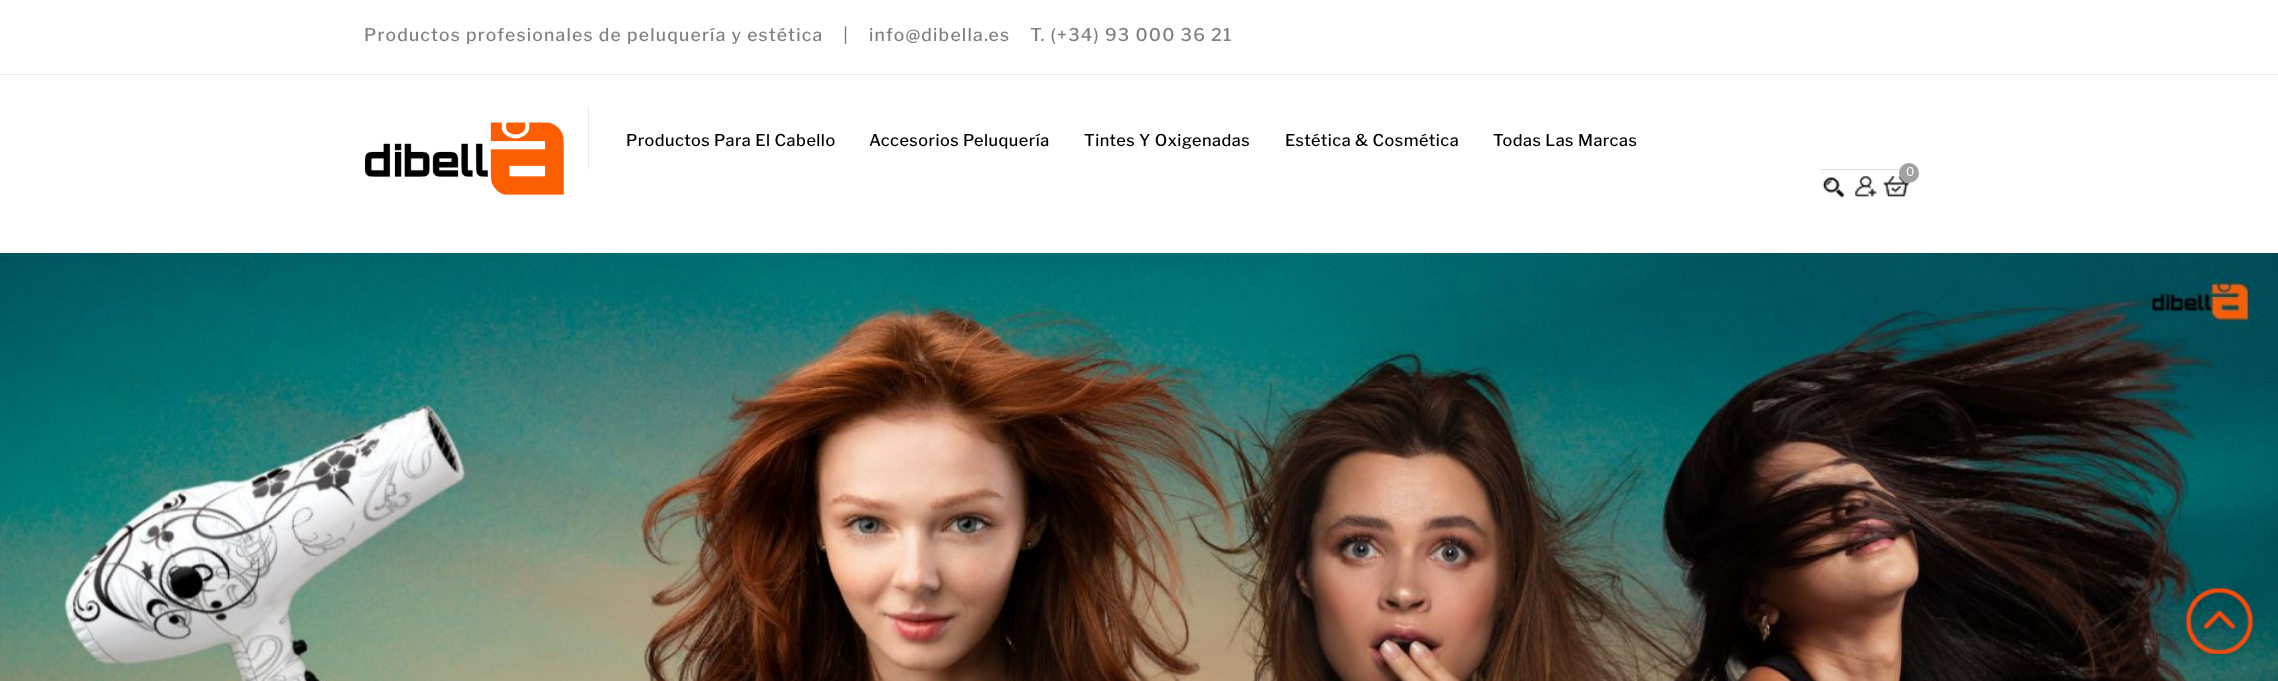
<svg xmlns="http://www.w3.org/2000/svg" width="2278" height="681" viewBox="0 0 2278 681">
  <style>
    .t1 { font: 500 17.5px Libre Franklin; letter-spacing: 1.25px; fill: #808080; }
    .t2 { font: 500 16.25px Libre Franklin; letter-spacing: 0.5px; fill: #000; }
    .t3 { font: 12px Libre Franklin; letter-spacing: 1px; fill: #fff; }
  </style>
  <rect width="100%" height="100%" fill="#fff"/>
  <rect x="0" y="74" width="2278" height="1" fill="#ebebeb"/>
  <text x="364" y="41" class="t1" xml:space="preserve">Productos profesionales de peluquería y estética    |    info@dibella.es    T. (+34) 93 000 36 21</text>
  <image x="365" y="122" width="199" height="73" href="images/1.png"/>
  <rect x="588" y="106" width="1" height="63" fill="#ebebeb"/>
  <text x="626" y="146" class="t2">Productos Para El Cabello</text>
  <text x="869" y="146" class="t2">Accesorios Peluquería</text>
  <text x="1084" y="146" class="t2">Tintes Y Oxigenadas</text>
  <text x="1285" y="146" class="t2">Estética &amp; Cosmética</text>
  <text x="1493" y="146" class="t2">Todas Las Marcas</text>
  <rect x="1821" y="169" width="79" height="1" fill="#ddd"/>
  <image x="1883" y="176" width="26" height="21" href="images/2.png"/>
  <circle cx="1909" cy="173" r="10" fill="#a1a1a1"/>
  <text x="1906" y="176" class="t3">0</text>
  <image x="1822" y="177" width="23" height="21" href="images/3.png"/>
  <image x="1855" y="176" width="22" height="21" href="images/4.png"/>
  <image x="0" y="253" width="2278" height="428" href="images/5.png"/>
  <image x="2186" y="587" width="67" height="69" href="images/6.png"/>
</svg>
